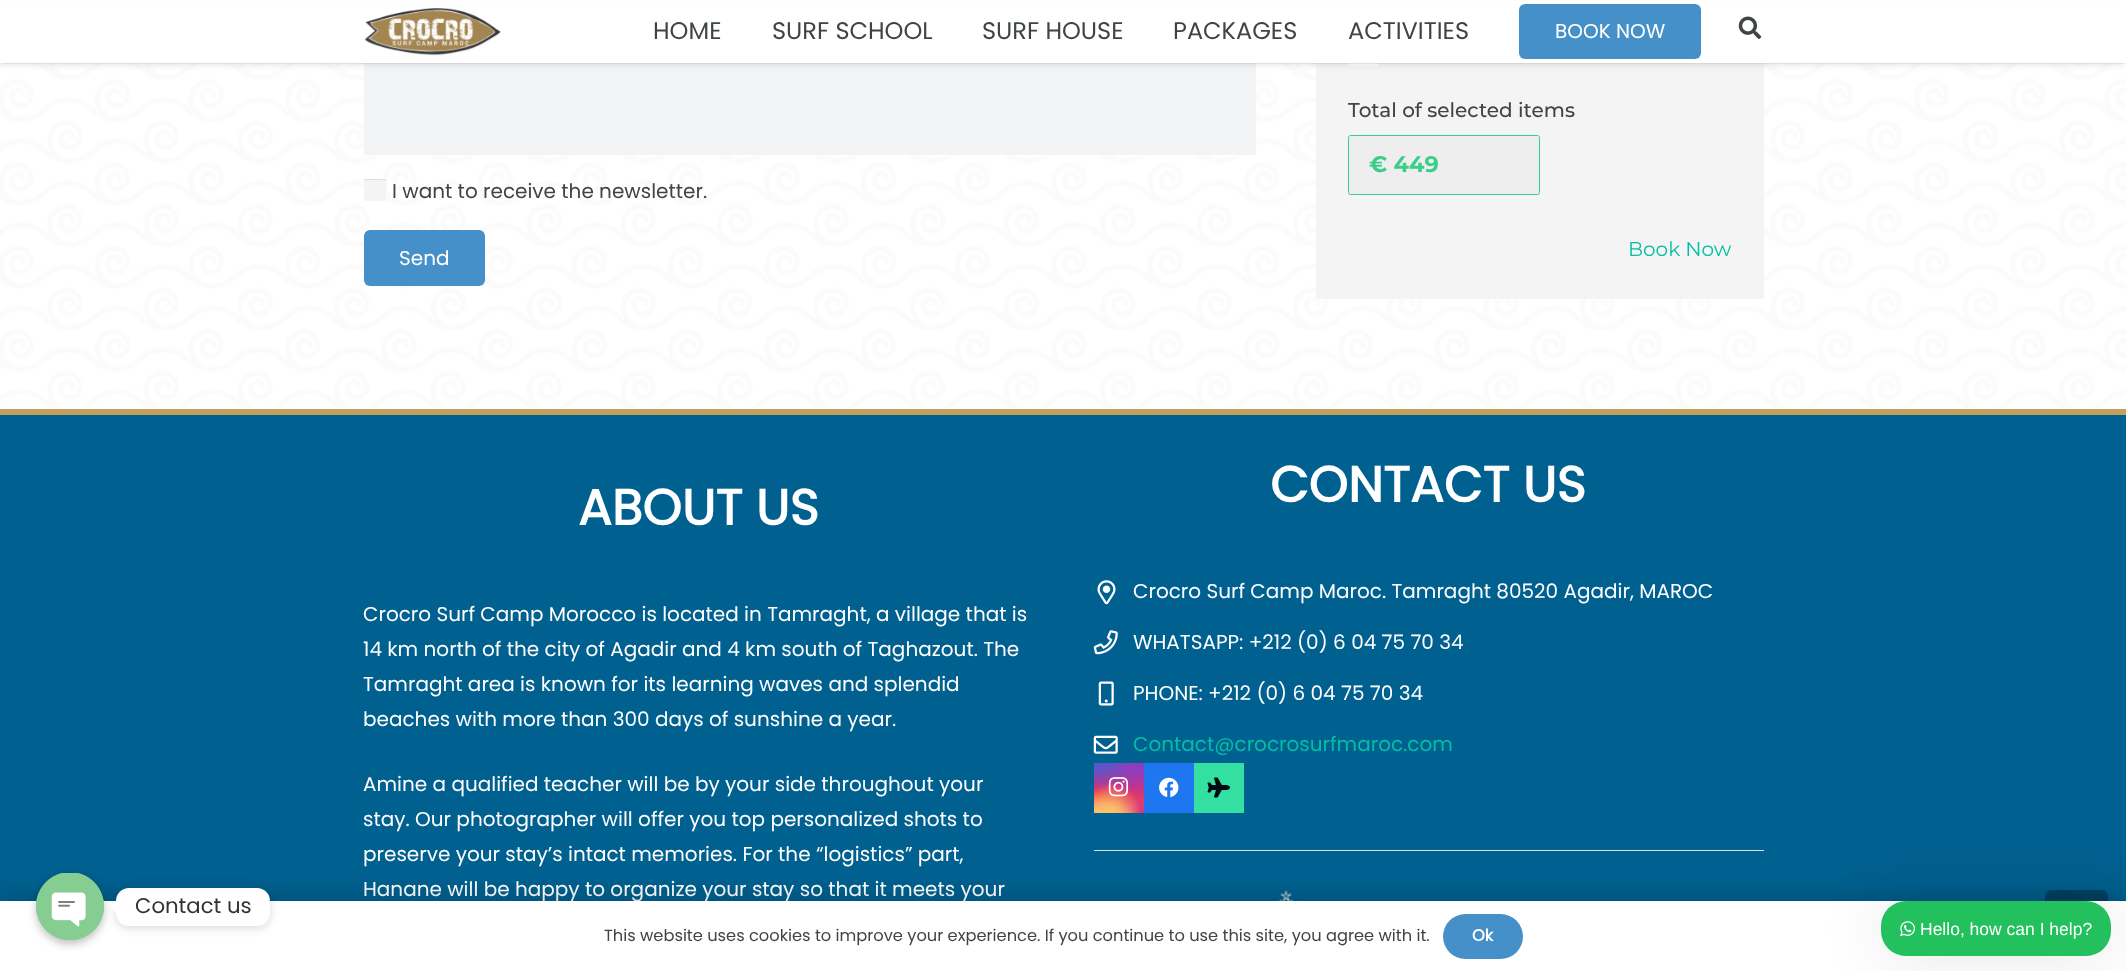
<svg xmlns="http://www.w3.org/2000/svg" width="2126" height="971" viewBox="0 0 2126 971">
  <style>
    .t1 { font: 24px Poppins; fill: #3f4544; }
    .t2 { font: 20px Poppins; fill: #fff; }
    .t3 { font: 20px Poppins; fill: #3f4544; }
    .t4 { font: 500 20px Montserrat; fill: #3f4544; }
    .t5 { font: bold 22.5px Montserrat; fill: #3cce88; }
    .t6 { font: 20px Montserrat; fill: #00bfa5; }
    .t7 { font: bold 50px Poppins; fill: #fff; }
    .t8 { font: 20px Poppins; fill: #00bfa5; }
    .t9 { font: 21.25px Poppins; fill: #333; }
    .t10 { font: 16.25px Poppins; fill: #3f4544; }
    .t11 { font: bold 16.25px Poppins; fill: #fff; }
    .t12 { font: 17.5px Liberation Sans; fill: #fff; }
  </style>
  <defs>
    <linearGradient id="g1" gradientUnits="userSpaceOnUse" x1="1119" y1="763" x2="1119" y2="813"><stop offset="0" stop-color="#6559ca"/><stop offset="0.3" stop-color="#bc318f"/><stop offset="0.5" stop-color="#e42e66"/><stop offset="0.7" stop-color="#fa5332"/><stop offset="1" stop-color="#ffdc80"/></linearGradient>
    <radialGradient id="g2" gradientUnits="userSpaceOnUse" cx="1144" cy="813" r="71"><stop offset="0" stop-color="#d9317a"/><stop offset="1" stop-color="#d9317a" stop-opacity="0"/></radialGradient>
    <radialGradient id="g3" gradientUnits="userSpaceOnUse" cx="0" cy="0" r="1" gradientTransform="matrix(42 0 0 85 1124 753)"><stop offset="0" stop-color="#893dc2"/><stop offset="0.5" stop-color="#893dc2" stop-opacity="0"/></radialGradient>
    <radialGradient id="g4" gradientUnits="userSpaceOnUse" cx="1144" cy="763" r="71"><stop offset="0" stop-color="#893dc2"/><stop offset="0.5" stop-color="#893dc2" stop-opacity="0"/></radialGradient>
    <radialGradient id="g5" gradientUnits="userSpaceOnUse" cx="0" cy="0" r="1" gradientTransform="matrix(57 0 0 106 1104 738)"><stop offset="0" stop-color="#5258cf"/><stop offset="0.5" stop-color="#5258cf" stop-opacity="0"/></radialGradient>
    <radialGradient id="g6" gradientUnits="userSpaceOnUse" cx="0" cy="0" r="1" gradientTransform="matrix(71 0 0 88 1094 750)"><stop offset="0" stop-color="#5258cf"/><stop offset="0.5" stop-color="#5258cf" stop-opacity="0"/></radialGradient>
    <radialGradient id="g7" gradientUnits="userSpaceOnUse" cx="1099" cy="833" r="83"><stop offset="0" stop-color="#feda7e"/><stop offset="0.5" stop-color="#feda7e" stop-opacity="0"/></radialGradient>
    <radialGradient id="g8" gradientUnits="userSpaceOnUse" cx="1111" cy="813" r="60"><stop offset="0" stop-color="#fec564"/><stop offset="0.5" stop-color="#fec564" stop-opacity="0"/></radialGradient>
  </defs>
  <rect width="100%" height="100%" fill="#fff"/>
  <image x="0" y="63" width="2126" height="345" href="images/3.png"/>
  <rect x="364" y="63" width="892" height="92" fill="#f2f4f5"/>
  <rect x="1316" y="63" width="448" height="236" fill="#f4f4f4"/>
  <rect x="1348" y="63" width="30" height="3" fill="#fff"/>
  <rect x="1" y="4" width="2124" height="60" fill="#0000000d" filter="blur(0.5px)"/>
  <rect x="1" y="5" width="2124" height="60" fill="#0000001a" filter="blur(3px)"/>
  <rect x="0" y="1" width="2126" height="62" fill="#fff"/>
  <image x="364" y="8" width="137" height="48" href="images/1.png"/>
  <text x="653" y="39" class="t1">HOME</text>
  <text x="772" y="39" class="t1">SURF SCHOOL</text>
  <text x="982" y="39" class="t1">SURF HOUSE</text>
  <text x="1173" y="39" class="t1">PACKAGES</text>
  <text x="1348" y="39" class="t1">ACTIVITIES</text>
  <rect x="1519" y="4" width="182" height="55" rx="6" fill="#4690c9"/>
  <text x="1555" y="38" class="t2">BOOK NOW</text>
  <image x="1738" y="16" width="24" height="23" href="images/2.png"/>
  <rect x="364" y="180" width="22" height="21" fill="#f2f4f5"/>
  <rect x="364" y="179" width="22" height="1" fill="#dfe0e1"/>
  <text x="392" y="198" class="t3">I want to receive the newsletter.</text>
  <rect x="364" y="230" width="121" height="56" rx="6" fill="#4690c9"/>
  <text x="399" y="265" class="t2">Send</text>
  <text x="1348" y="117" class="t4">Total of selected items</text>
  <rect x="1348.5" y="135.5" width="191" height="59" rx="2" fill="#eee" stroke="#3cce88"/>
  <text x="1369" y="172" class="t5">€ 449</text>
  <text x="1628" y="256" class="t6">Book Now</text>
  <rect x="0" y="415" width="2126" height="486" fill="#00608f"/>
  <rect x="0" y="409" width="2126" height="6" fill="#c4a05e"/>
  <text x="578" y="525" class="t7">ABOUT US</text>
  <text x="363" y="621" class="t2">Crocro Surf Camp Morocco is located in Tamraght, a village that is</text>
  <text x="363" y="656" class="t2">14 km north of the city of Agadir and 4 km south of Taghazout. The</text>
  <text x="363" y="691" class="t2">Tamraght area is known for its learning waves and splendid</text>
  <text x="363" y="726" class="t2">beaches with more than 300 days of sunshine a year.</text>
  <text x="363" y="791" class="t2">Amine a qualified teacher will be by your side throughout your</text>
  <text x="363" y="826" class="t2">stay. Our photographer will offer you top personalized shots to</text>
  <text x="363" y="861" class="t2">preserve your stay’s intact memories. For the “logistics” part,</text>
  <text x="363" y="896" class="t2">Hanane will be happy to organize your stay so that it meets your</text>
  <text x="1270" y="502" class="t7">CONTACT US</text>
  <image x="1097" y="580" width="19" height="25" href="images/4.png"/>
  <text x="1133" y="598" class="t2">Crocro Surf Camp Maroc. Tamraght 80520 Agadir, MAROC</text>
  <image x="1093" y="630" width="25" height="25" href="images/5.png"/>
  <text x="1133" y="649" class="t2">WHATSAPP: +212 (0) 6 04 75 70 34</text>
  <image x="1098" y="681" width="16" height="25" href="images/6.png"/>
  <text x="1133" y="700" class="t2">PHONE: +212 (0) 6 04 75 70 34</text>
  <image x="1093" y="735" width="25" height="19" href="images/7.png"/>
  <text x="1133" y="751" class="t8">Contact@crocrosurfmaroc.com</text>
  <rect x="1094" y="763" width="50" height="50" fill="url(#g1)"/>
  <rect x="1094" y="763" width="50" height="50" fill="url(#g2)"/>
  <rect x="1106" y="763" width="36" height="32" fill="url(#g3)"/>
  <rect x="1113" y="763" width="31" height="34" fill="url(#g4)"/>
  <rect x="1094" y="763" width="33" height="27" fill="url(#g5)"/>
  <rect x="1094" y="763" width="32" height="30" fill="url(#g6)"/>
  <rect x="1094" y="792" width="40" height="21" fill="url(#g7)"/>
  <rect x="1094" y="784" width="46" height="29" fill="url(#g8)"/>
  <image x="1108" y="777" width="21" height="20" href="images/8.png"/>
  <rect x="1144" y="763" width="50" height="50" fill="#1e77f0"/>
  <image x="1159" y="777" width="20" height="20" href="images/9.png"/>
  <rect x="1194" y="763" width="50" height="50" fill="#34e0a1"/>
  <image x="1207" y="777" width="23" height="21" href="images/10.png"/>
  <rect x="1094" y="850" width="670" height="1" fill="#dadfe0"/>
  <image x="1278" y="890" width="24" height="11" href="images/11.png"/>
  <rect x="2045" y="890" width="63" height="63" rx="6" fill="#004364"/>
  <rect x="0" y="895" width="2126" height="70" fill="#00000026" filter="blur(9.5px)"/>
  <rect x="0" y="901" width="2126" height="70" fill="#fff"/>
  <rect x="116" y="889" width="154" height="39" rx="13" fill="#00000026" filter="blur(5px)"/>
  <rect x="116" y="888" width="154" height="38" rx="13" fill="#fff"/>
  <path d="M116 900.5V913L110 907Z" fill="#fff"/>
  <rect x="36" y="876" width="68" height="68" rx="34" fill="#00000040" filter="blur(4px)"/>
  <rect x="36" y="873" width="68" height="67" rx="33.5" fill="#86cd91"/>
  <image x="36" y="873" width="68" height="67" href="images/12.png"/>
  <text x="135" y="913" class="t9">Contact us</text>
  <text x="604" y="941" class="t10">This website uses cookies to improve your experience. If you continue to use this site, you agree with it.</text>
  <rect x="1443" y="914" width="80" height="45" rx="22.5" fill="#4690c9"/>
  <text x="1472" y="941" class="t11">Ok</text>
  <rect x="1881" y="901" width="230" height="55" rx="25" fill="#0000001a" filter="blur(31px)"/>
  <rect x="1881" y="901" width="230" height="55" rx="25" fill="#22c15e"/>
  <image x="1900" y="921" width="15" height="16" href="images/13.png"/>
  <text x="1920" y="935" class="t12">Hello, how can I help?</text>
</svg>
